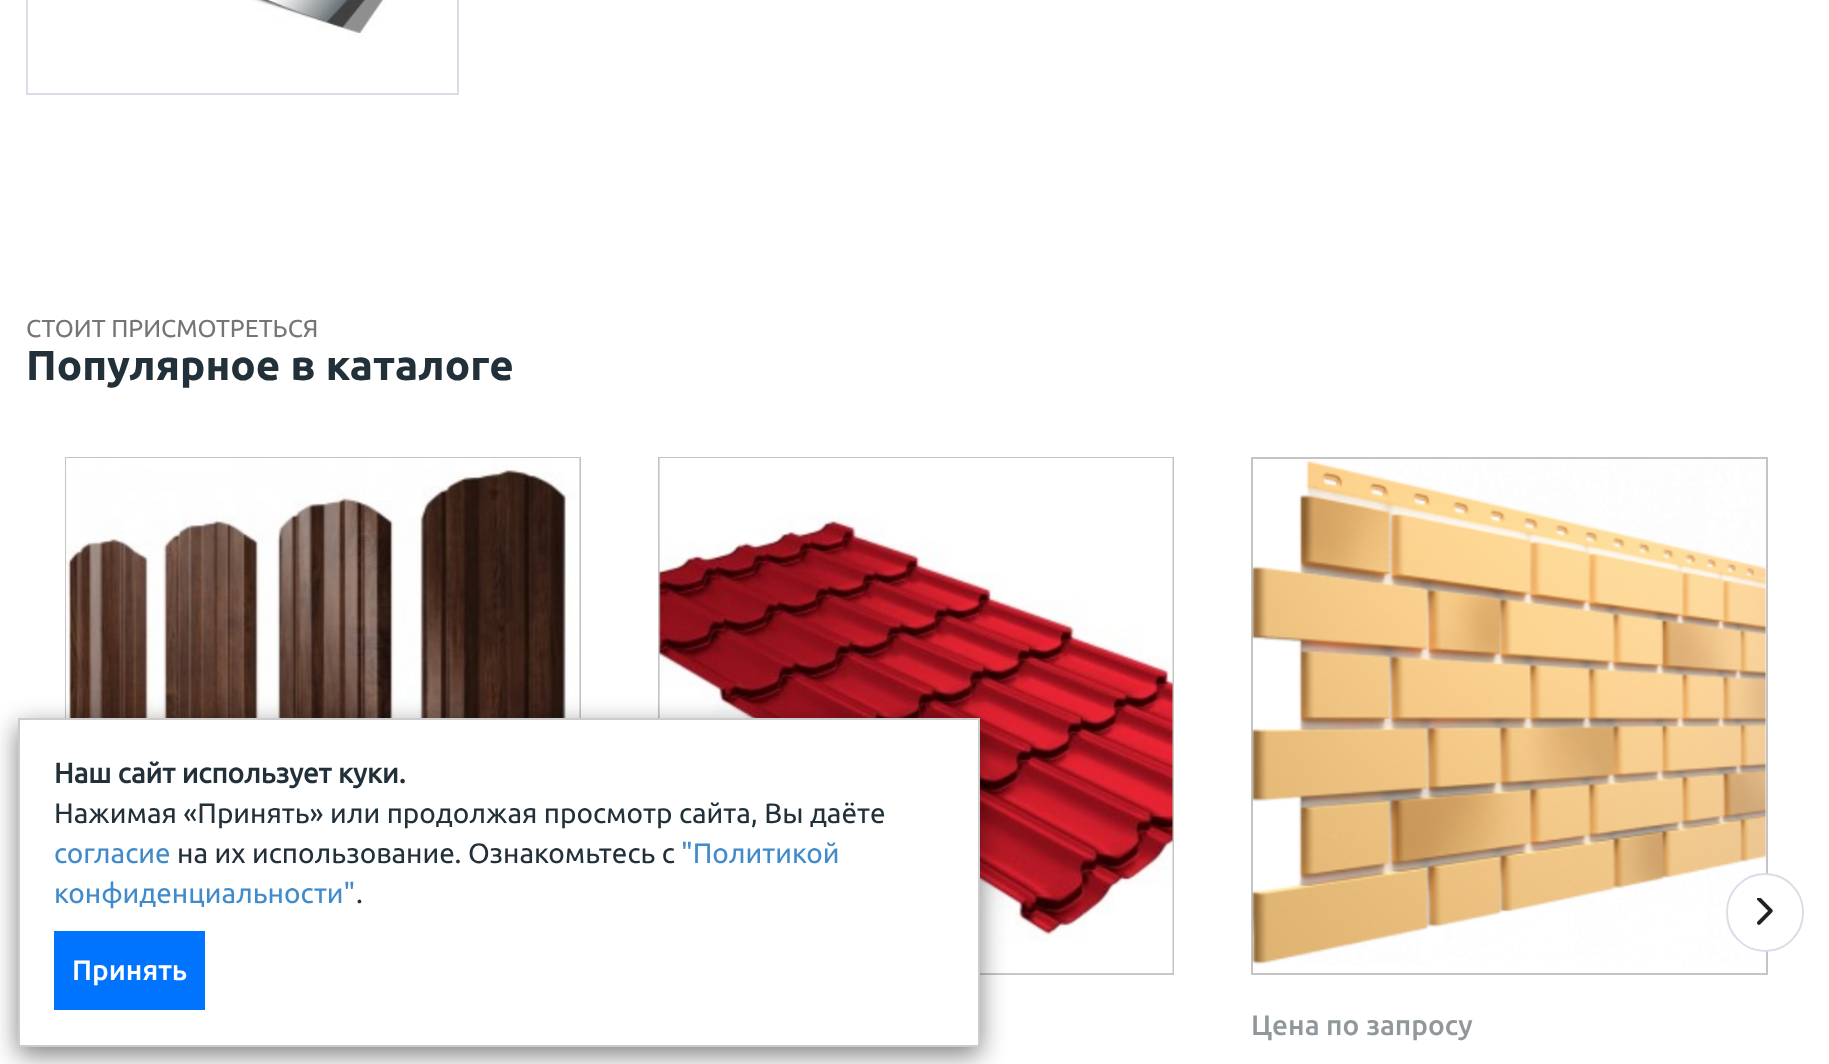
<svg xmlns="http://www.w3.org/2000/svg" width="1829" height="1064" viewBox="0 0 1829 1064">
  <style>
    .t1 { font: 24.5px Ubuntu; fill: #757575; }
    .t2 { font: bold 42px Ubuntu; fill: #213039; }
    .t3 { font: 500 28px Ubuntu; fill: #90989c; }
    .t4 { font: bold 28px 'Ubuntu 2'; fill: #213039; }
    .t5 { font: 28px Ubuntu; fill: #213039; }
    .t6 { font: 28px Ubuntu; fill: #428bca; }
    .t7 { font: 500 28px Ubuntu; fill: #fff; }
  </style>
  <rect width="100%" height="100%" fill="#fff"/>
  <rect x="27" y="-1" width="431" height="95" fill="none" stroke="#d9dde8" stroke-width="2"/>
  <image x="252" y="0" width="133" height="39" href="images/1.png"/>
  <text x="26" y="337" class="t1">СТОИТ ПРИСМОТРЕТЬСЯ</text>
  <text x="26" y="380" class="t2">Популярное в каталоге</text>
  <rect x="1252" y="458" width="515" height="516" fill="none" stroke="#c4c4c4" stroke-width="2"/>
  <image x="1252" y="460" width="514" height="505" href="images/5.png"/>
  <rect x="1727" y="874" width="76" height="77" rx="38" fill="#fff" stroke="#d9dde8" stroke-width="2"/>
  <image x="1757" y="898" width="16" height="27" href="images/2.png"/>
  <rect x="66" y="458" width="514" height="516" fill="none" stroke="#c4c4c4" stroke-width="2"/>
  <image x="66" y="458" width="514" height="260" href="images/3.png"/>
  <rect x="659" y="458" width="514" height="516" fill="none" stroke="#c4c4c4" stroke-width="2"/>
  <image x="659" y="458" width="514" height="516" href="images/4.png"/>
  <text x="1251" y="1035" class="t3">Цена по запросу</text>
  <rect x="18" y="726" width="962" height="329" fill="#00000080" filter="blur(13px)"/>
  <rect x="19" y="719" width="960" height="327" fill="#fff" stroke="#ccc" stroke-width="2"/>
  <text x="54" y="783" class="t4">Наш сайт использует куки.</text>
  <text x="54" y="823" class="t5">Нажимая «Принять» или продолжая просмотр сайта, Вы даёте</text>
  <text x="54" y="863" class="t6">согласие</text>
  <text x="177" y="863" class="t5">на их использование. Ознакомьтесь с</text>
  <text x="681" y="863" class="t6">"Политикой</text>
  <text x="54" y="903" class="t6">конфиденциальности"</text>
  <text x="356" y="903" class="t5">.</text>
  <rect x="54" y="931" width="151" height="79" fill="#0074ff"/>
  <text x="72" y="980" class="t7">Принять</text>
</svg>
